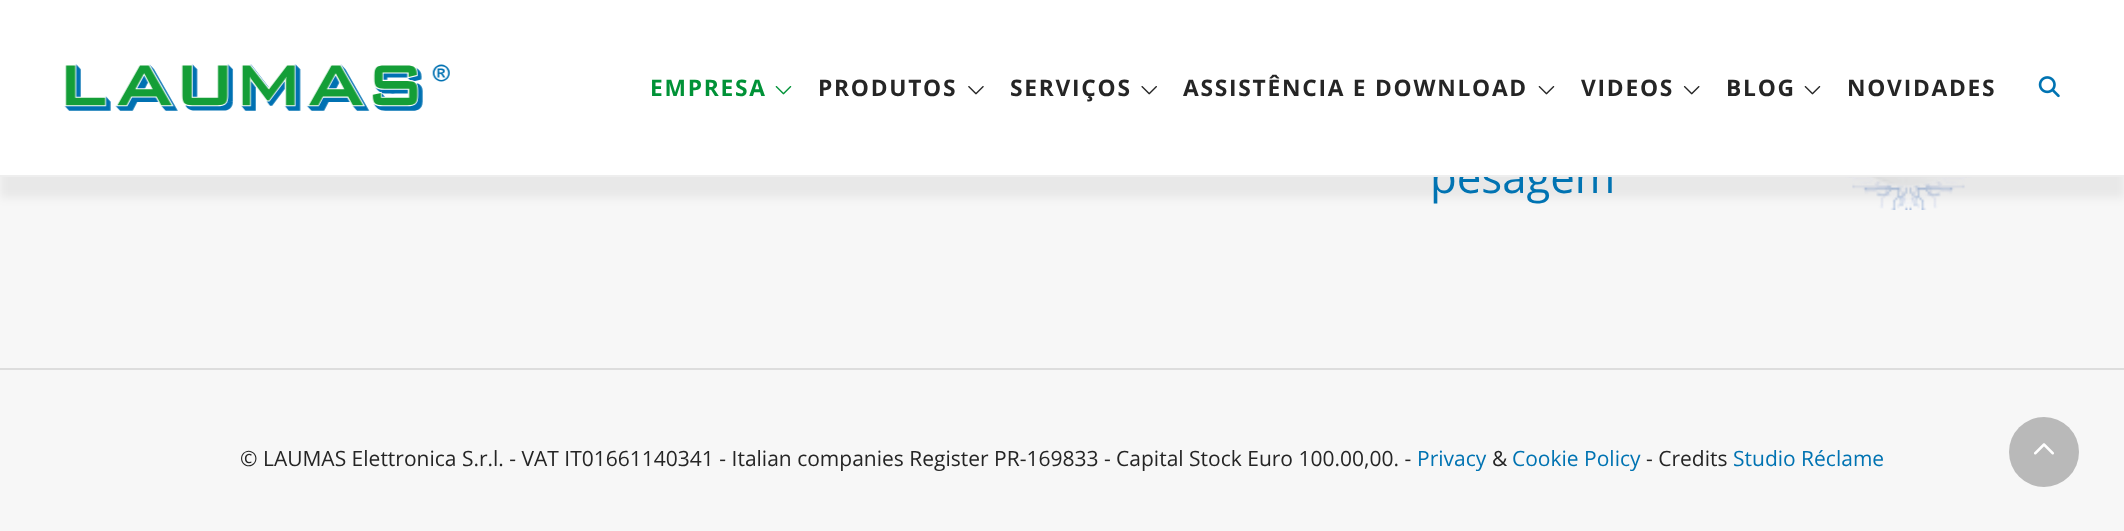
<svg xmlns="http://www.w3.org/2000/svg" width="2124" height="531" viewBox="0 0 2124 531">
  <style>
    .t1 { font: 43.75px Open Sans; fill: #0073b2; }
    .t2 { font: bold 22.75px Open Sans; letter-spacing: 1.75px; fill: #009237; }
    .t3 { font: bold 22.75px Open Sans; letter-spacing: 1.75px; fill: #252525; }
    .t4 { font: 21px Open Sans; fill: #252525; }
    .t5 { font: 21px Open Sans; fill: #0073b2; }
  </style>
  <rect width="100%" height="100%" fill="#f7f7f7"/>
  <image x="1844" y="177" width="129" height="33" href="images/8.png"/>
  <rect x="0" y="21" width="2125" height="177" fill="#0000000f" filter="blur(5px)"/>
  <text x="1430" y="193" class="t1">pesagem</text>
  <rect x="0" y="0" width="2124" height="175" fill="#fff"/>
  <rect x="0" y="175" width="2124" height="2" fill="#eee"/>
  <image x="64" y="64" width="386" height="47" href="images/1.png"/>
  <text x="650" y="96" class="t2">EMPRESA</text>
  <image x="775" y="86" width="17" height="9" href="images/2.png"/>
  <text x="818" y="96" class="t3">PRODUTOS</text>
  <image x="968" y="86" width="16" height="9" href="images/3.png"/>
  <text x="1010" y="96" class="t3">SERVIÇOS</text>
  <image x="1141" y="86" width="16" height="9" href="images/4.png"/>
  <text x="1183" y="96" class="t3">ASSISTÊNCIA E DOWNLOAD</text>
  <image x="1538" y="86" width="17" height="9" href="images/5.png"/>
  <text x="1581" y="96" class="t3">VIDEOS</text>
  <image x="1683" y="86" width="17" height="9" href="images/6.png"/>
  <text x="1726" y="96" class="t3">BLOG</text>
  <image x="1804" y="86" width="17" height="9" href="images/5.png"/>
  <text x="1847" y="96" class="t3">NOVIDADES</text>
  <image x="2038" y="76" width="22" height="22" href="images/7.png"/>
  <rect x="0" y="368" width="2124" height="2" fill="#ddd"/>
  <text x="240" y="466" class="t4">© LAUMAS Elettronica S.r.l. - VAT IT01661140341 - Italian companies Register PR-169833 - Capital Stock Euro 100.00,00. -</text>
  <text x="1417" y="466" class="t5">Privacy</text>
  <text x="1492" y="466" class="t4">&amp;</text>
  <text x="1512" y="466" class="t5">Cookie Policy</text>
  <text x="1646" y="466" class="t4">- Credits</text>
  <text x="1733" y="466" class="t5">Studio Réclame</text>
  <circle cx="2044" cy="452" r="35" fill="#b9b9b9"/>
  <image x="2034" y="443" width="20" height="12" href="images/9.png"/>
</svg>
